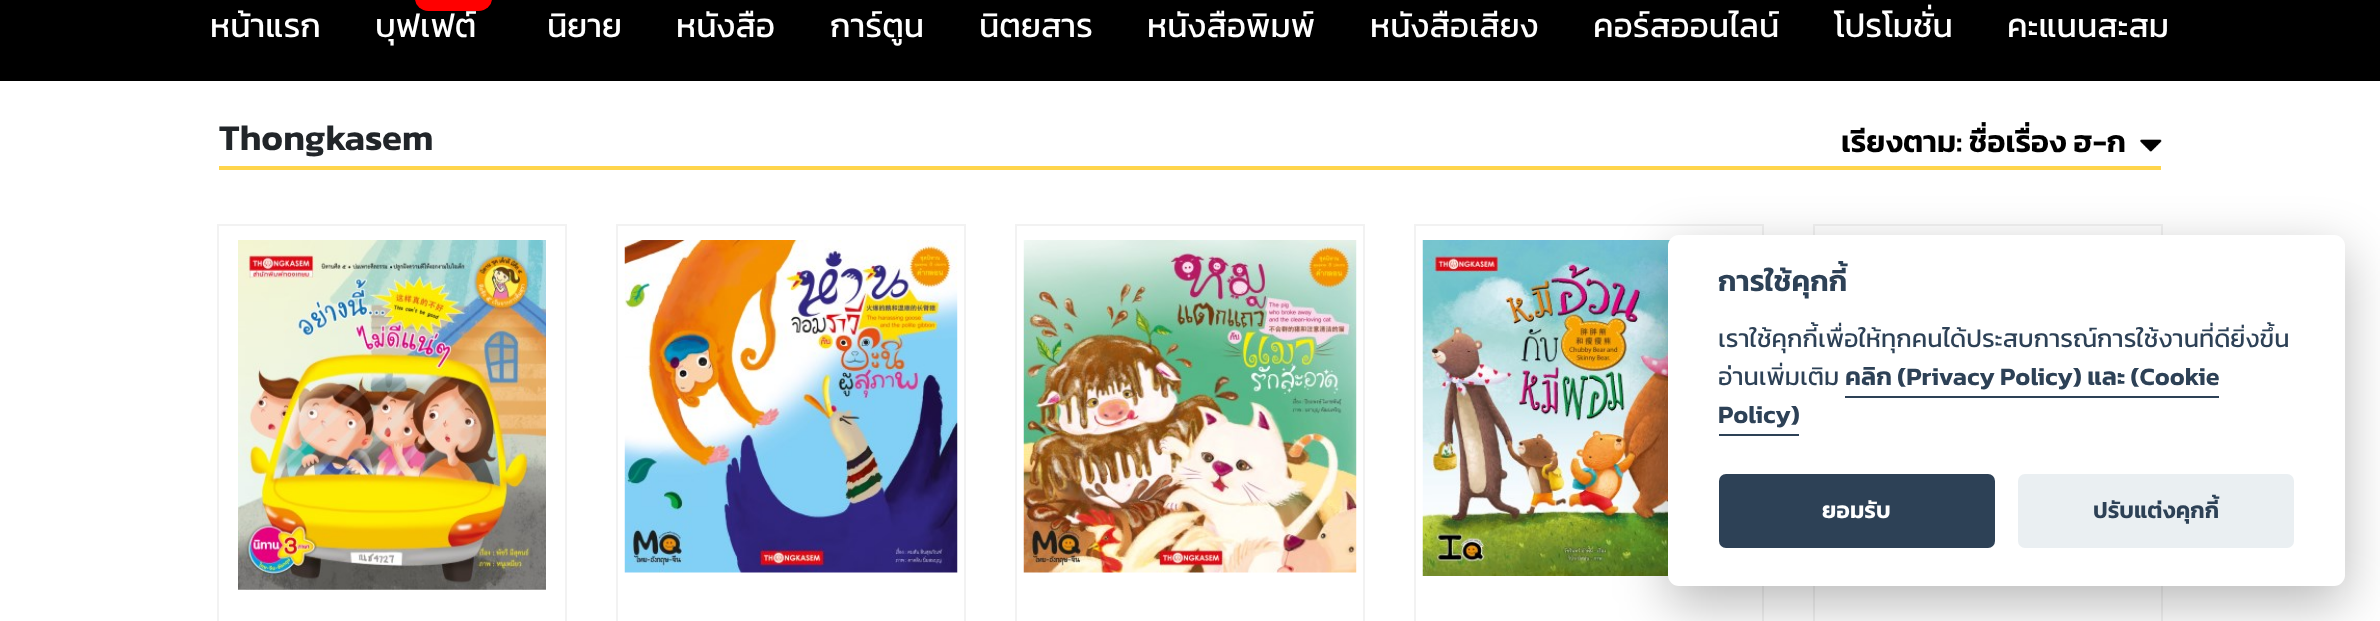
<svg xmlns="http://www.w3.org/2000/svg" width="2380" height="621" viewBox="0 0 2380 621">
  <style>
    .t1 { font: 33.5px Kanit; fill: #fff; }
    .t2 { font: 600 36.5px Kanit; fill: #212529; }
    .t3 { font: 600 30.75px Kanit; fill: #000; }
    .t4 { font: 600 29.5px Kanit; fill: #2d4156; }
    .t5 { font: 25.2px Kanit; fill: #2d4156; }
    .t6 { font: 600 25.2px Kanit; fill: #2d4156; }
    .t7 { font: 600 23px Kanit; fill: #fff; }
    .t8 { font: 600 23px Kanit; fill: #2d4156; }
  </style>
  <rect width="100%" height="100%" fill="#fff"/>
  <rect x="0" y="0" width="2380" height="81" fill="#000"/>
  <text x="210" y="37" class="t1">หน้าแรก</text>
  <rect x="415" y="-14" width="77" height="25" rx="13.5" fill="#f00"/>
  <text x="375" y="37" class="t1">บุฟเฟต์</text>
  <text x="547" y="37" class="t1">นิยาย</text>
  <text x="676" y="37" class="t1">หนังสือ</text>
  <text x="830" y="37" class="t1">การ์ตูน</text>
  <text x="979" y="37" class="t1">นิตยสาร</text>
  <text x="1147" y="37" class="t1">หนังสือพิมพ์</text>
  <text x="1370" y="37" class="t1">หนังสือเสียง</text>
  <text x="1593" y="37" class="t1">คอร์สออนไลน์</text>
  <text x="1834" y="37" class="t1">โปรโมชั่น</text>
  <text x="2007" y="37" class="t1">คะแนนสะสม</text>
  <rect x="219" y="166" width="1942" height="4" fill="#ffd54c"/>
  <text x="219" y="150" class="t2">Thongkasem</text>
  <text x="1841" y="152" class="t3">เรียงตาม: ชื่อเรื่อง ฮ-ก</text>
  <image x="2140" y="139" width="22" height="13" href="images/1.png"/>
  <rect x="218" y="225" width="348" height="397" fill="none" stroke="#f2f2f2" stroke-width="2"/>
  <image x="238" y="240" width="308" height="350" href="images/2.png"/>
  <rect x="617" y="225" width="348" height="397" fill="none" stroke="#f2f2f2" stroke-width="2"/>
  <image x="624" y="240" width="334" height="333" href="images/3.png"/>
  <rect x="1016" y="225" width="348" height="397" fill="none" stroke="#f2f2f2" stroke-width="2"/>
  <image x="1023" y="240" width="334" height="333" href="images/4.png"/>
  <rect x="1415" y="225" width="348" height="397" fill="none" stroke="#f2f2f2" stroke-width="2"/>
  <image x="1422" y="240" width="248" height="336" href="images/5.png"/>
  <rect x="1814" y="225" width="348" height="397" fill="none" stroke="#f2f2f2" stroke-width="2"/>
  <rect x="1668" y="252" width="677" height="352" rx="11" fill="#02020347" filter="blur(26px)"/>
  <rect x="1668" y="235" width="677" height="351" rx="11" fill="#fff"/>
  <text x="1718" y="291" class="t4">การใช้คุกกี้</text>
  <text x="1718" y="347" class="t5">เราใช้คุกกี้เพื่อให้ทุกคนได้ประสบการณ์การใช้งานที่ดียิ่งขึ้น</text>
  <text x="1718" y="385" class="t5">อ่านเพิ่มเติม</text>
  <text x="1845" y="385" class="t6">คลิก (Privacy Policy) และ (Cookie</text>
  <rect x="1845" y="396" width="374" height="2" fill="#2d4156"/>
  <text x="1718" y="423" class="t6">Policy)</text>
  <rect x="1719" y="434" width="80" height="2" fill="#2d4156"/>
  <rect x="1719" y="474" width="276" height="74" rx="7" fill="#2d4156"/>
  <text x="1822" y="518" class="t7">ยอมรับ</text>
  <rect x="2018" y="474" width="276" height="74" rx="7" fill="#eaeff2"/>
  <text x="2093" y="518" class="t8">ปรับแต่งคุกกี้</text>
</svg>
